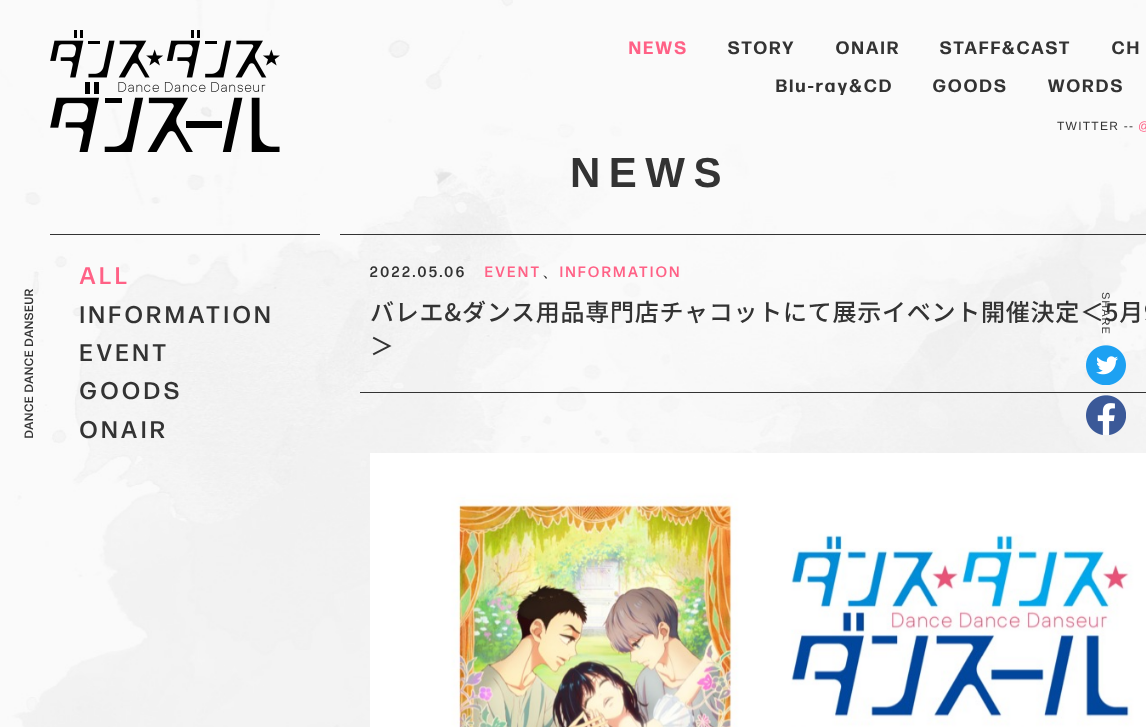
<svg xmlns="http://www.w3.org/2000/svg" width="1146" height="727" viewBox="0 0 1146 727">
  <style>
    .t1 { font: bold 18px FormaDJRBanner; letter-spacing: 2.75px; fill: #ff6186; }
    .t2 { font: bold 18px FormaDJRBanner; letter-spacing: 2.75px; fill: #333; }
    .t3 { font: 12px Liberation Sans; letter-spacing: 1.25px; fill: #333; }
    .t4 { font: 12px Liberation Sans; letter-spacing: 1.25px; fill: #ff6186; }
    .t5 { font: 500 24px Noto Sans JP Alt; letter-spacing: 0.75px; fill: #333; }
    .t6 { font: 11px Liberation Sans; letter-spacing: 1px; fill: #333; }
    .t7 { font: 500 12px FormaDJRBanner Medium; letter-spacing: 1.25px; fill: #333; }
    .t8 { font: bold 42px Liberation Sans; letter-spacing: 8.5px; fill: #333; }
    .t9 { font: 500 24px FormaDJRBanner Medium; letter-spacing: 4.75px; fill: #ff6186; }
    .t10 { font: 500 24px FormaDJRBanner Medium; letter-spacing: 4.75px; fill: #333; }
    .t11 { font: 500 15px FormaDJRBanner Medium; letter-spacing: 3px; fill: #333; }
    .t12 { font: 500 15px FormaDJRBanner Medium; letter-spacing: 3px; fill: #ff6186; }
    .t13 { font: bold 15px WenQuanYi Zen Hei; letter-spacing: 3px; fill: #333; }
    .t14 { font: 500 24px Noto Sans JP; letter-spacing: 0.75px; fill: #333; }
  </style>
  <rect width="100%" height="100%" fill="#fff"/>
  <image x="0" y="0" width="1146" height="727" href="images/1.png"/>
  <image x="50" y="30" width="230" height="122" href="images/2.png"/>
  <text x="629" y="54" class="t1">NEWS</text>
  <text x="728" y="54" class="t2">STORY</text>
  <text x="836" y="54" class="t2">ONAIR</text>
  <text x="940" y="54" class="t2">STAFF&amp;CAST</text>
  <text x="1112" y="54" class="t2">CH</text>
  <text x="776" y="92" class="t2">Blu-ray&amp;CD</text>
  <text x="933" y="92" class="t2">GOODS</text>
  <text x="1048" y="92" class="t2">WORDS</text>
  <text x="1057" y="130" class="t3">TWITTER --</text>
  <text x="1138" y="130" class="t4">@</text>
  <text x="370" y="321" class="t5">バレエ&amp;ダンス用品専門店チャコットにて展示イベント開催決定＜5月9日</text>
  <text x="1102" y="292" transform="rotate(90 1102 292)" class="t6">SHARE</text>
  <circle cx="1106" cy="365" r="20" fill="#fff"/>
  <image x="1086" y="345" width="40" height="40" href="images/3.png"/>
  <circle cx="1106" cy="415" r="20" fill="#fff"/>
  <image x="1086" y="395" width="40" height="40" href="images/4.png"/>
  <text x="33" y="438" transform="rotate(-90 33 438)" class="t7">DANCE DANCE DANSEUR</text>
  <text x="570" y="187" class="t8">NEWS</text>
  <rect x="50" y="234" width="270" height="1" fill="#333"/>
  <text x="80" y="284" class="t9">ALL</text>
  <text x="80" y="323" class="t10">INFORMATION</text>
  <text x="80" y="361" class="t10">EVENT</text>
  <text x="80" y="399" class="t10">GOODS</text>
  <text x="80" y="438" class="t10">ONAIR</text>
  <rect x="340" y="234" width="806" height="1" fill="#333"/>
  <rect x="360" y="392" width="786" height="1" fill="#333"/>
  <text x="370" y="277" class="t11">2022.05.06</text>
  <text x="485" y="277" class="t12">EVENT</text>
  <text x="542" y="277" class="t13">、</text>
  <text x="560" y="277" class="t12">INFORMATION</text>
  <text x="370" y="355" class="t14">＞</text>
  <image x="370" y="453" width="776" height="274" href="images/5.png"/>
</svg>
